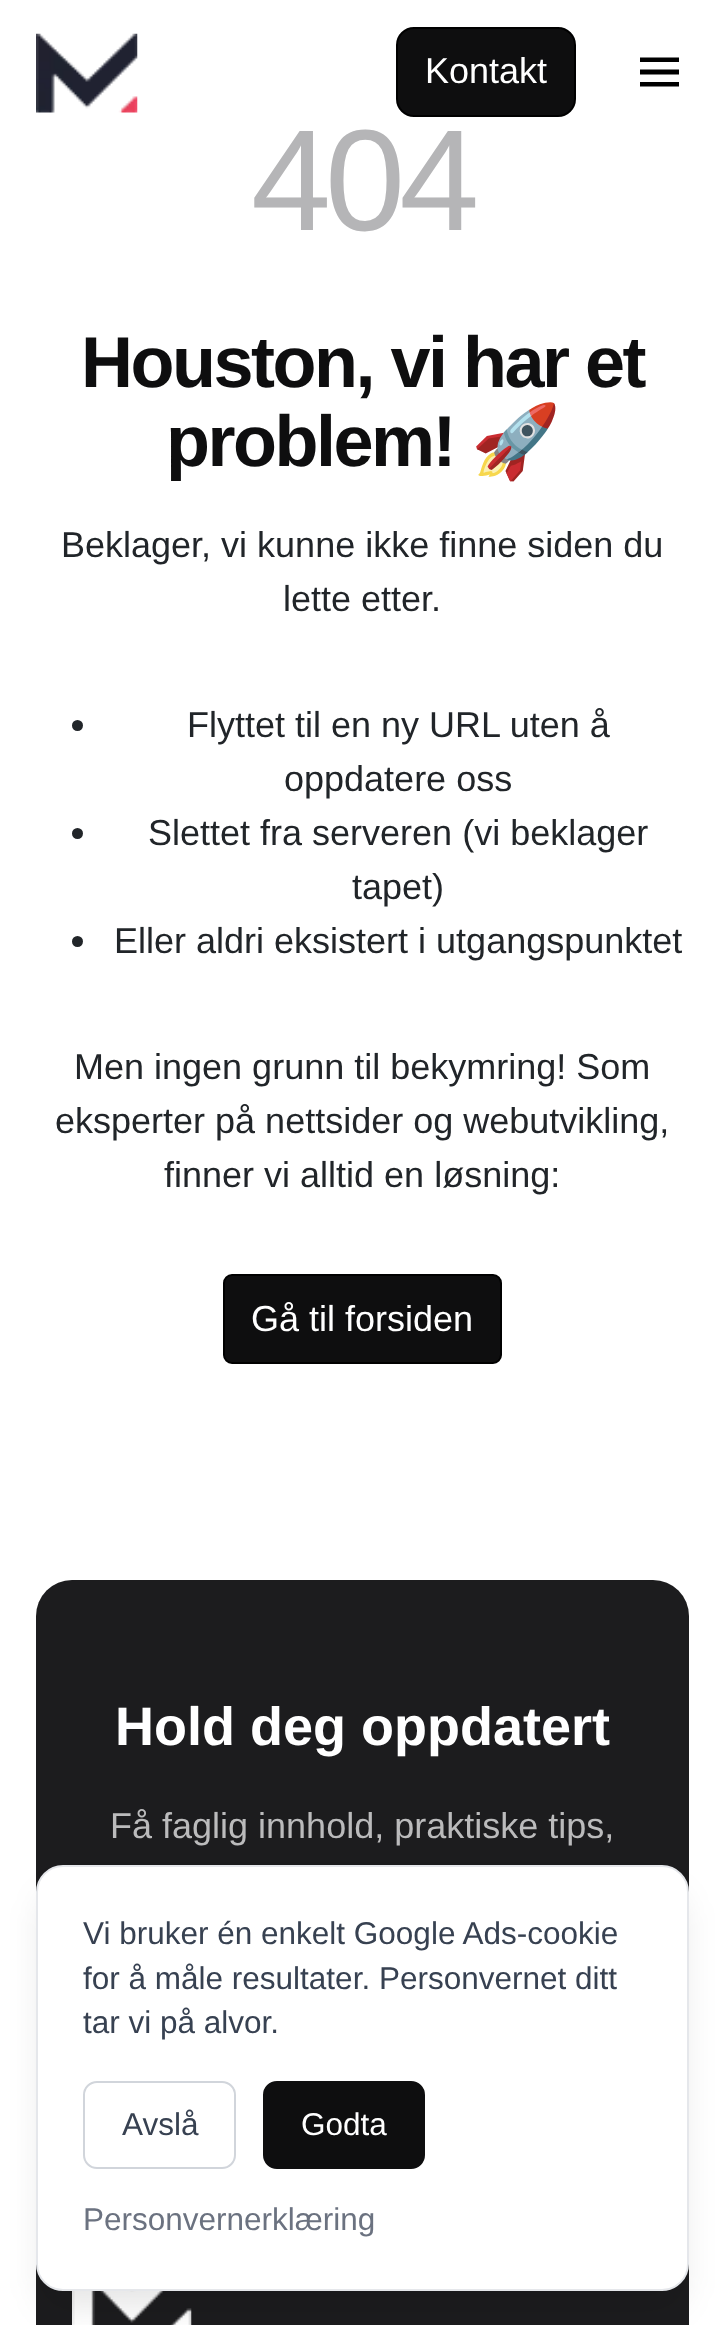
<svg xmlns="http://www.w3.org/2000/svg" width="723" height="2325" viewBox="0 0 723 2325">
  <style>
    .t1 { font: 36px Liberation Sans; fill: #fff; }
    .t2 { font: 144px Liberation Sans; letter-spacing: -6px; fill: #b5b5b7; }
    .t3 { font: bold 72px Liberation Sans; letter-spacing: -2.5px; fill: #0e0e0f; }
    .t4 { font: bold 72px Noto Color Emoji; letter-spacing: -2.5px; fill: #0e0e0f; }
    .t5 { font: 36px Liberation Sans; fill: #212529; }
    .t6 { font: bold 54px Liberation Sans; fill: #fff; }
    .t7 { font: 36px Liberation Sans; fill: #bbbbbc; }
    .t8 { font: 31.5px Liberation Sans; fill: #374151; }
    .t9 { font: 31.5px Liberation Sans; fill: #fff; }
    .t10 { font: 31.5px Liberation Sans; fill: #6b7280; }
  </style>
  <rect width="100%" height="100%" fill="#fff"/>
  <image x="36" y="33" width="102" height="80" href="images/1.png"/>
  <rect x="397" y="28" width="178" height="88" rx="17" fill="#0e0e0f" stroke="#000" stroke-width="2"/>
  <text x="425" y="83" class="t1">Kontakt</text>
  <path d="M640 57.5H679V62H640ZM640 69.5H679V74.5H640ZM640 82H679V86.5H640Z" fill="#000"/>
  <text x="251" y="230" class="t2">404</text>
  <text x="81" y="387" class="t3">Houston, vi har et</text>
  <text x="166" y="466" class="t3">problem!</text>
  <text x="471" y="466" class="t4">🚀</text>
  <text x="61" y="557" class="t5">Beklager, vi kunne ikke finne siden du</text>
  <text x="283" y="611" class="t5">lette etter.</text>
  <circle cx="77.5" cy="725.5" r="5.5" fill="#212529"/>
  <text x="187" y="737" class="t5">Flyttet til en ny URL uten å</text>
  <text x="284" y="791" class="t5">oppdatere oss</text>
  <circle cx="77.5" cy="833.5" r="5.5" fill="#212529"/>
  <text x="148" y="845" class="t5">Slettet fra serveren (vi beklager</text>
  <text x="352" y="899" class="t5">tapet)</text>
  <circle cx="77.5" cy="941.5" r="5.5" fill="#212529"/>
  <text x="114" y="953" class="t5">Eller aldri eksistert i utgangspunktet</text>
  <text x="74" y="1079" class="t5">Men ingen grunn til bekymring! Som</text>
  <text x="55" y="1133" class="t5">eksperter på nettsider og webutvikling,</text>
  <text x="164" y="1187" class="t5">finner vi alltid en løsning:</text>
  <rect x="224" y="1275" width="277" height="88" rx="8" fill="#0e0e0f" stroke="#000" stroke-width="2"/>
  <text x="251" y="1331" class="t1">Gå til forsiden</text>
  <rect x="36" y="1580" width="653" height="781" rx="36" fill="#1c1c1e"/>
  <text x="115" y="1745" class="t6">Hold deg oppdatert</text>
  <text x="110" y="1838" class="t7">Få faglig innhold, praktiske tips,</text>
  <image x="72" y="2291" width="120" height="34" href="images/2.png"/>
  <rect x="43" y="1895" width="639" height="411" rx="20" fill="#0000001a" filter="blur(17px)"/>
  <rect x="37" y="1866" width="651" height="424" rx="26" fill="#fff" stroke="#e5e7eb" stroke-width="2"/>
  <text x="83" y="1944" class="t8">Vi bruker én enkelt Google Ads-cookie</text>
  <text x="83" y="1989" class="t8">for å måle resultater. Personvernet ditt</text>
  <text x="83" y="2033" class="t8">tar vi på alvor.</text>
  <rect x="84" y="2082" width="151" height="86" rx="13" fill="none" stroke="#d1d5db" stroke-width="2"/>
  <text x="122" y="2135" class="t8">Avslå</text>
  <rect x="264" y="2082" width="160" height="86" rx="13" fill="#0e0e0f" stroke="#0e0e0f" stroke-width="2"/>
  <text x="301" y="2135" class="t9">Godta</text>
  <text x="83" y="2230" class="t10">Personvernerklæring</text>
</svg>
